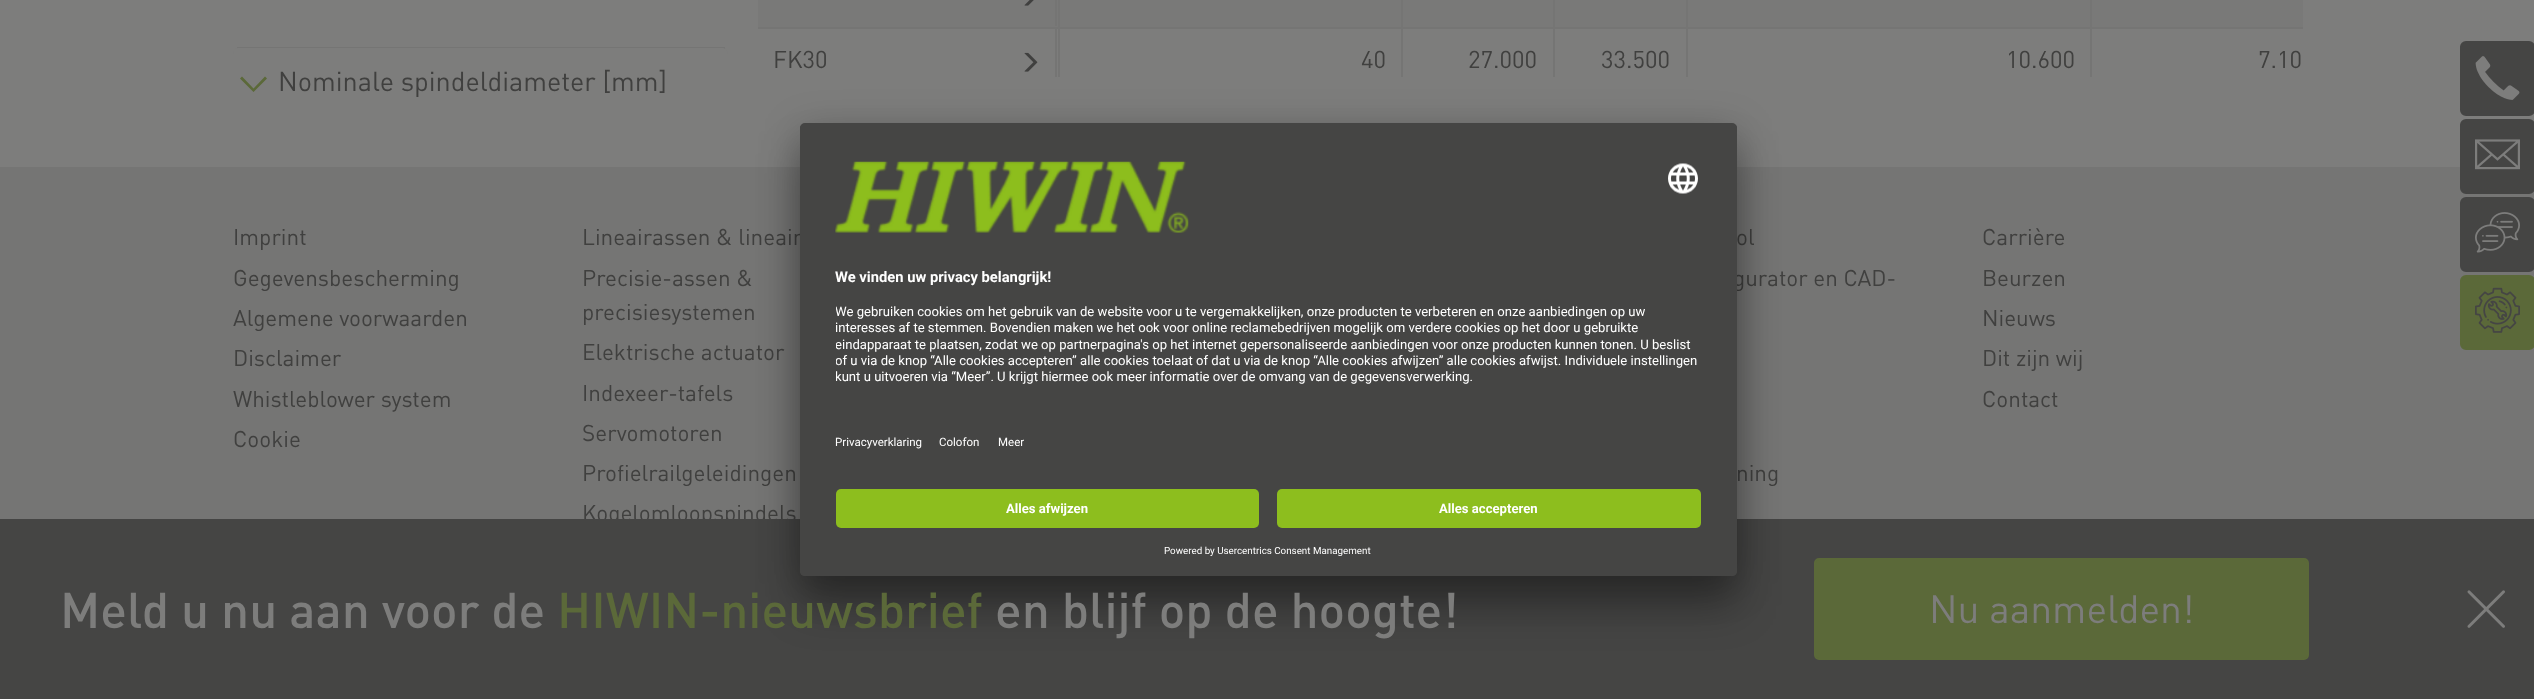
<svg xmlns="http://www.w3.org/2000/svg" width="2534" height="699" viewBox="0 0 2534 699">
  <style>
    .t1 { font: 24px DIN; fill: #40403f; }
    .t2 { font: 27px DIN; fill: #40403f; }
    .t3 { font: 22.5px DIN; fill: #40403f; }
    .t4 { font: bold 14.75px Roboto; fill: #fff; }
    .t5 { font: 13.12px Roboto; fill: #fff; }
    .t6 { font: 11.5px Roboto; fill: #fff; }
    .t7 { font: bold 13.12px Roboto; fill: #fff; }
    .t8 { font: 9.8px Roboto; fill: #fff; }
    .t9 { font: 500 49.5px DIN; fill: #7d7d7c; }
    .t10 { font: 500 49.5px DIN; fill: #5b6939; }
    .t11 { font: 39px DIN; fill: #7d7d7c; }
  </style>
  <defs>
    <clipPath id="clip1"><rect x="800" y="123" width="937" height="453" rx="5"/></clipPath>
    <clipPath id="clip2"><path d="M805 123H1732C1735 123 1737 125 1737 128V477H800V128C800 125 802 123 805 123Z"/></clipPath>
    <clipPath id="clip3"><rect x="836" y="297" width="865" height="95"/></clipPath>
  </defs>
  <rect width="100%" height="100%" fill="#7d7d7c"/>
  <rect x="758" y="0" width="1545" height="27" fill="#797978"/>
  <rect x="2090" y="27" width="2" height="50" fill="#757574"/>
  <rect x="2090" y="27" width="213" height="2" fill="#757574"/>
  <rect x="2090" y="0" width="2" height="29" fill="#757574"/>
  <rect x="1686" y="27" width="2" height="50" fill="#757574"/>
  <rect x="1686" y="27" width="405" height="2" fill="#757574"/>
  <rect x="1686" y="0" width="2" height="29" fill="#757574"/>
  <rect x="1553" y="27" width="2" height="50" fill="#757574"/>
  <rect x="1553" y="27" width="135" height="2" fill="#757574"/>
  <rect x="1553" y="0" width="2" height="29" fill="#757574"/>
  <rect x="1401" y="27" width="2" height="50" fill="#757574"/>
  <rect x="1401" y="27" width="153" height="2" fill="#757574"/>
  <rect x="1401" y="0" width="2" height="29" fill="#757574"/>
  <rect x="758" y="27" width="301" height="2" fill="#757574"/>
  <rect x="1058" y="27" width="2" height="50" fill="#757574"/>
  <rect x="1058" y="27" width="345" height="2" fill="#757574"/>
  <rect x="1058" y="0" width="2" height="29" fill="#757574"/>
  <rect x="1055" y="0" width="2" height="26" fill="#757574"/>
  <image x="1024" y="0" width="10" height="6" href="images/1.png"/>
  <rect x="1055" y="29" width="2" height="48" fill="#757574"/>
  <text x="773" y="68" class="t1">FK30</text>
  <image x="1024" y="52" width="14" height="20" href="images/2.png"/>
  <text x="1361" y="68" class="t1">40</text>
  <text x="1468" y="68" class="t1">27.000</text>
  <text x="1601" y="68" class="t1">33.500</text>
  <text x="2006" y="68" class="t1">10.600</text>
  <text x="2258" y="68" class="t1">7.10</text>
  <rect x="237" y="47" width="488" height="2" fill="#757574"/>
  <path d="M239 48H722C725.5 48 728 50.5 728 54V104H233V54C233 50.5 235.5 48 239 48Z" fill="#7d7d7c"/>
  <path d="M253.5 92L240 78.5L242 76.5L253.5 88.5L265 76.5L267 78.5Z" fill="#5b6939"/>
  <text x="278" y="91" class="t2">Nominale spindeldiameter [mm]</text>
  <rect x="0" y="167" width="2534" height="352" fill="#757574"/>
  <text x="233" y="245" class="t3">Imprint</text>
  <text x="233" y="286" class="t3">Gegevensbescherming</text>
  <text x="233" y="326" class="t3">Algemene voorwaarden</text>
  <text x="233" y="366" class="t3">Disclaimer</text>
  <text x="233" y="407" class="t3">Whistleblower system</text>
  <text x="233" y="447" class="t3">Cookie</text>
  <text x="582" y="245" class="t3">Lineairassen &amp; lineair</text>
  <text x="582" y="286" class="t3">Precisie-assen &amp;</text>
  <text x="582" y="320" class="t3">precisiesystemen</text>
  <text x="582" y="360" class="t3">Elektrische actuator</text>
  <text x="582" y="401" class="t3">Indexeer-tafels</text>
  <text x="582" y="441" class="t3">Servomotoren</text>
  <text x="582" y="481" class="t3">Profielrailgeleidingen</text>
  <text x="582" y="521" class="t3">Kogelomloopspindels</text>
  <text x="1736" y="245" class="t3">ol</text>
  <text x="1733" y="286" class="t3">gurator en CAD-</text>
  <text x="1736" y="481" class="t3">ning</text>
  <text x="1982" y="245" class="t3">Carrière</text>
  <text x="1982" y="286" class="t3">Beurzen</text>
  <text x="1982" y="326" class="t3">Nieuws</text>
  <text x="1982" y="366" class="t3">Dit zijn wij</text>
  <text x="1982" y="407" class="t3">Contact</text>
  <rect x="2461" y="42" width="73" height="73" rx="5" fill="#454544" stroke="#454544" stroke-width="2"/>
  <image x="2475" y="56" width="45" height="44" href="images/3.png"/>
  <rect x="2461" y="120" width="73" height="73" rx="5" fill="#454544" stroke="#454544" stroke-width="2"/>
  <image x="2475" y="139" width="45" height="31" href="images/4.png"/>
  <rect x="2461" y="198" width="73" height="73" rx="5" fill="#454544" stroke="#454544" stroke-width="2"/>
  <image x="2475" y="212" width="45" height="41" href="images/5.png"/>
  <rect x="2461" y="276" width="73" height="73" rx="5" fill="#5b6939" stroke="#5b6939" stroke-width="2"/>
  <image x="2475" y="287" width="45" height="46" href="images/6.png"/>
  <rect x="0" y="519" width="2534" height="180" fill="#454544"/>
  <rect x="800" y="153" width="937" height="453" rx="5" fill="#0000004d" filter="blur(21px)"/>
  <rect x="800" y="131" width="937" height="453" rx="5" fill="#00000038" filter="blur(19.5px)"/>
  <rect x="800" y="123" width="937" height="453" rx="5" fill="#454544"/>
  <g clip-path="url(#clip1)">
    <g clip-path="url(#clip2)">
      <rect x="800" y="125" width="937" height="352" fill="#454544"/>
    </g>
  </g>
  <image x="835" y="161" width="354" height="72" href="images/7.png"/>
  <image x="1668" y="163" width="30" height="31" href="images/8.png"/>
  <text x="835" y="282" class="t4">We vinden uw privacy belangrijk!</text>
  <g clip-path="url(#clip3)">
    <text x="835" y="316" class="t5">We gebruiken cookies om het gebruik van de website voor u te vergemakkelijken, onze producten te verbeteren en onze aanbiedingen op uw</text>
    <text x="835" y="332" class="t5">interesses af te stemmen. Bovendien maken we het ook voor online reclamebedrijven mogelijk om verdere cookies op het door u gebruikte</text>
    <text x="835" y="349" class="t5">eindapparaat te plaatsen, zodat we op partnerpagina's op het internet gepersonaliseerde aanbiedingen voor onze producten kunnen tonen. U beslist</text>
    <text x="835" y="365" class="t5">of u via de knop “Alle cookies accepteren” alle cookies toelaat of dat u via de knop “Alle cookies afwijzen” alle cookies afwijst. Individuele instellingen</text>
    <text x="835" y="381" class="t5">kunt u uitvoeren via “Meer”. U krijgt hiermee ook meer informatie over de omvang van de gegevensverwerking.</text>
  </g>
  <text x="835" y="446" class="t6">Privacyverklaring</text>
  <text x="939" y="446" class="t6">Colofon</text>
  <text x="998" y="446" class="t6">Meer</text>
  <path d="M800 477H1737V571C1737 574 1735 576 1732 576H805C802 576 800 574 800 571Z" fill="#454544"/>
  <rect x="836" y="489" width="423" height="39" rx="5" fill="#8dbe1e"/>
  <text x="1006" y="513" class="t7">Alles afwijzen</text>
  <rect x="1277" y="489" width="424" height="39" rx="5" fill="#8dbe1e"/>
  <text x="1439" y="513" class="t7">Alles accepteren</text>
  <text x="1164" y="554" class="t8">Powered by Usercentrics Consent Management</text>
  <text x="60" y="628" class="t9">Meld u nu aan voor de</text>
  <text x="557" y="628" class="t10">HIWIN-nieuwsbrief</text>
  <text x="995" y="628" class="t9">en blijf op de hoogte!</text>
  <rect x="1815" y="559" width="493" height="100" rx="4" fill="#5b6939" stroke="#5b6939" stroke-width="2"/>
  <text x="1929" y="623" class="t11">Nu aanmelden!</text>
  <image x="2467" y="590" width="38" height="38" href="images/9.png"/>
</svg>
